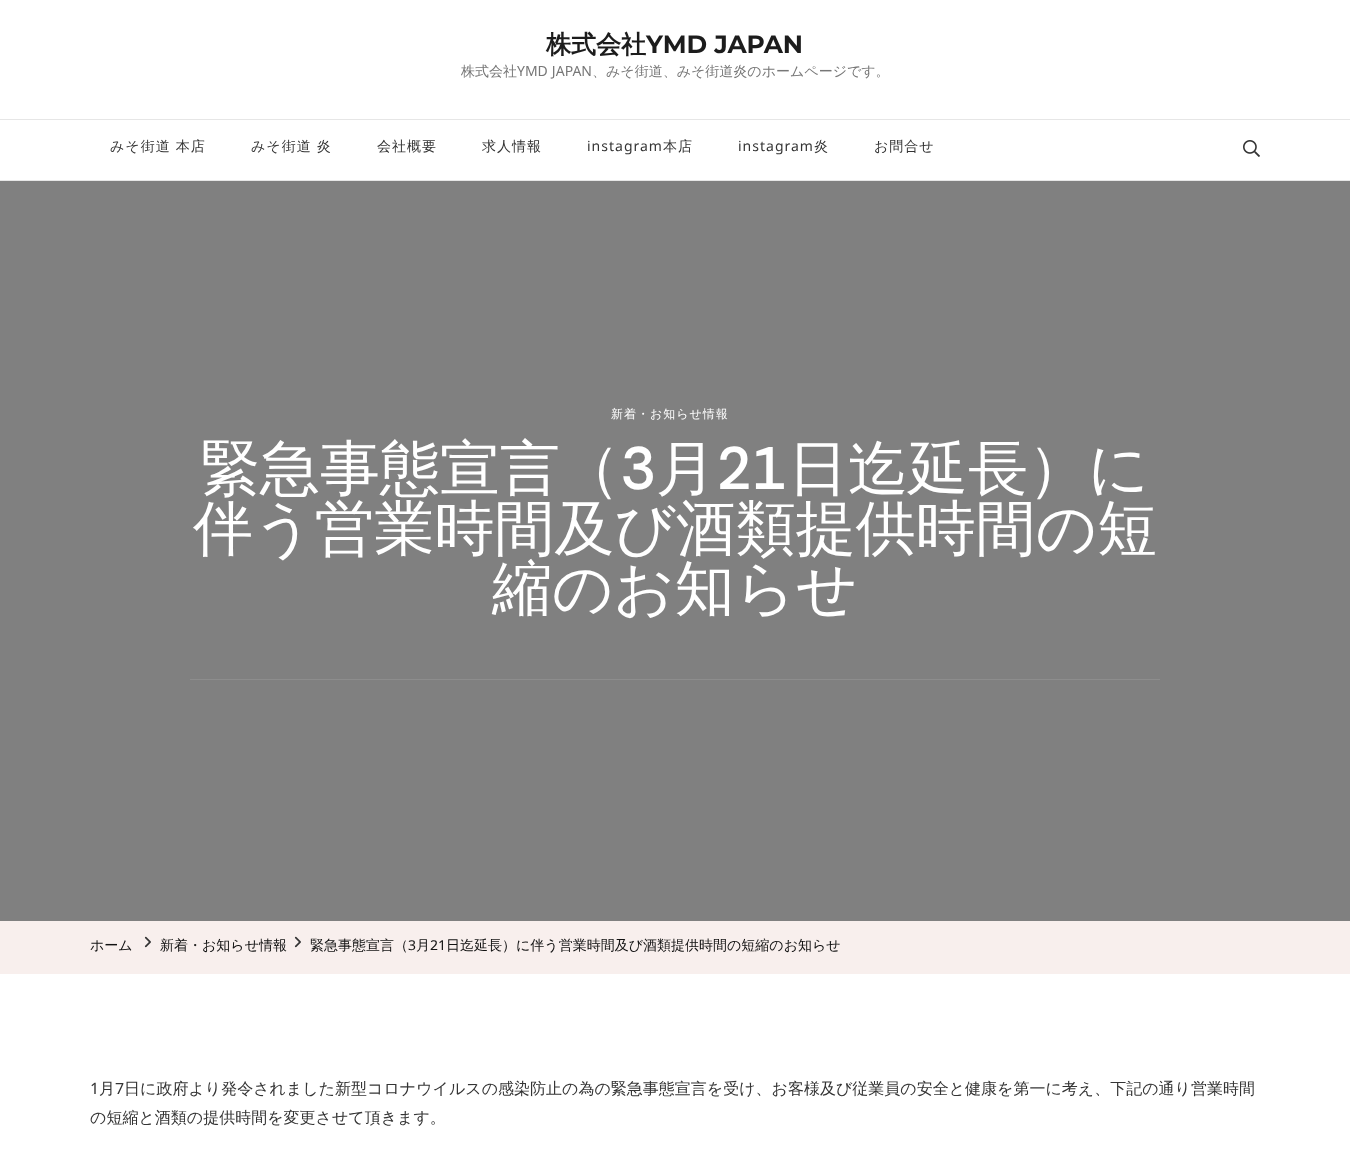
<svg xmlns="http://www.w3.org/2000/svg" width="1350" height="1166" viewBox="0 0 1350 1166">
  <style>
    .t1 { font: bold 25px WenQuanYi Zen Hei; fill: #1c1c1c; }
    .t2 { font: 100 25px Montserrat; fill: #1c1c1c; }
    .t3 { font: 500 14px WenQuanYi Zen Hei; fill: #777; }
    .t4 { font: 14px Noto Sans Kannada; fill: #777; }
    .t5 { font: 500 14px WenQuanYi Zen Hei; letter-spacing: 1px; fill: #343434; }
    .t6 { font: 14px Noto Sans Kannada; letter-spacing: 1px; fill: #343434; }
    .t7 { font: 500 12px WenQuanYi Zen Hei; letter-spacing: 1px; fill: #fff; }
    .t8 { font: 500 60px WenQuanYi Zen Hei; fill: #fff; }
    .t9 { font: 500 60px DM Mono; fill: #fff; }
    .t10 { font: 500 14px WenQuanYi Zen Hei; fill: #111; }
    .t11 { font: 14px Noto Sans Kannada; fill: #111; }
    .t12 { font: 16px Noto Sans Kannada; fill: #343434; }
    .t13 { font: 500 16px WenQuanYi Zen Hei; fill: #343434; }
  </style>
  <rect width="100%" height="100%" fill="#fff"/>
  <rect x="0" y="180" width="1350" height="1" fill="#e6e6e6"/>
  <text x="546" y="53" class="t1">株式会社</text>
  <text x="646" y="53" class="t2">YMD JAPAN</text>
  <text x="461" y="76" class="t3">株式会社</text>
  <text x="517" y="76" class="t4">YMD JAPAN</text>
  <text x="592" y="76" class="t3">、みそ街道、みそ街道炎のホームページです。</text>
  <rect x="0" y="119" width="1350" height="1" fill="#e6e6e6"/>
  <text x="110" y="151" class="t5">みそ街道 本店</text>
  <text x="251" y="151" class="t5">みそ街道 炎</text>
  <text x="377" y="151" class="t5">会社概要</text>
  <text x="482" y="151" class="t5">求人情報</text>
  <text x="587" y="151" class="t6">instagram</text>
  <text x="663" y="151" class="t5">本店</text>
  <text x="738" y="151" class="t6">instagram</text>
  <text x="814" y="151" class="t5">炎</text>
  <text x="874" y="151" class="t5">お問合せ</text>
  <image x="1243" y="140" width="17" height="17" href="images/1.png"/>
  <rect x="0" y="181" width="1350" height="740" fill="#808080"/>
  <text x="611" y="418" class="t7">新着・お知らせ情報</text>
  <text x="200" y="489" class="t8">緊急事態宣言（</text>
  <text x="620" y="489" class="t9">3</text>
  <text x="656" y="489" class="t8">月</text>
  <text x="716" y="489" class="t9">21</text>
  <text x="788" y="489" class="t8">日迄延長）に</text>
  <text x="193" y="549" class="t8">伴う営業時間及び酒類提供時間の短</text>
  <text x="492" y="609" class="t8">縮のお知らせ</text>
  <rect x="190" y="679" width="970" height="1" fill="#8d8d8d"/>
  <rect x="0" y="921" width="1350" height="53" fill="#f8efed"/>
  <text x="90" y="950" class="t10">ホーム</text>
  <image x="144" y="936" width="7" height="12" href="images/2.png"/>
  <text x="160" y="950" class="t10">新着・お知らせ情報</text>
  <image x="294" y="936" width="7" height="12" href="images/2.png"/>
  <text x="310" y="950" class="t10">緊急事態宣言（</text>
  <text x="408" y="950" class="t11">3</text>
  <text x="416" y="950" class="t10">月</text>
  <text x="430" y="950" class="t11">21</text>
  <text x="446" y="950" class="t10">日迄延長）に伴う営業時間及び酒類提供時間の短縮のお知らせ</text>
  <text x="90" y="1094" class="t12">1</text>
  <text x="99" y="1094" class="t13">月</text>
  <text x="115" y="1094" class="t12">7</text>
  <text x="124" y="1094" class="t13">日に政府より発令されました新型コロナウイルスの感染防止の為の緊急事態宣言を受け、お客様及び従業員の安全と健康を第一に考え、下記の通り営業時間</text>
  <text x="90" y="1123" class="t13">の短縮と酒類の提供時間を変更させて頂きます。</text>
</svg>
